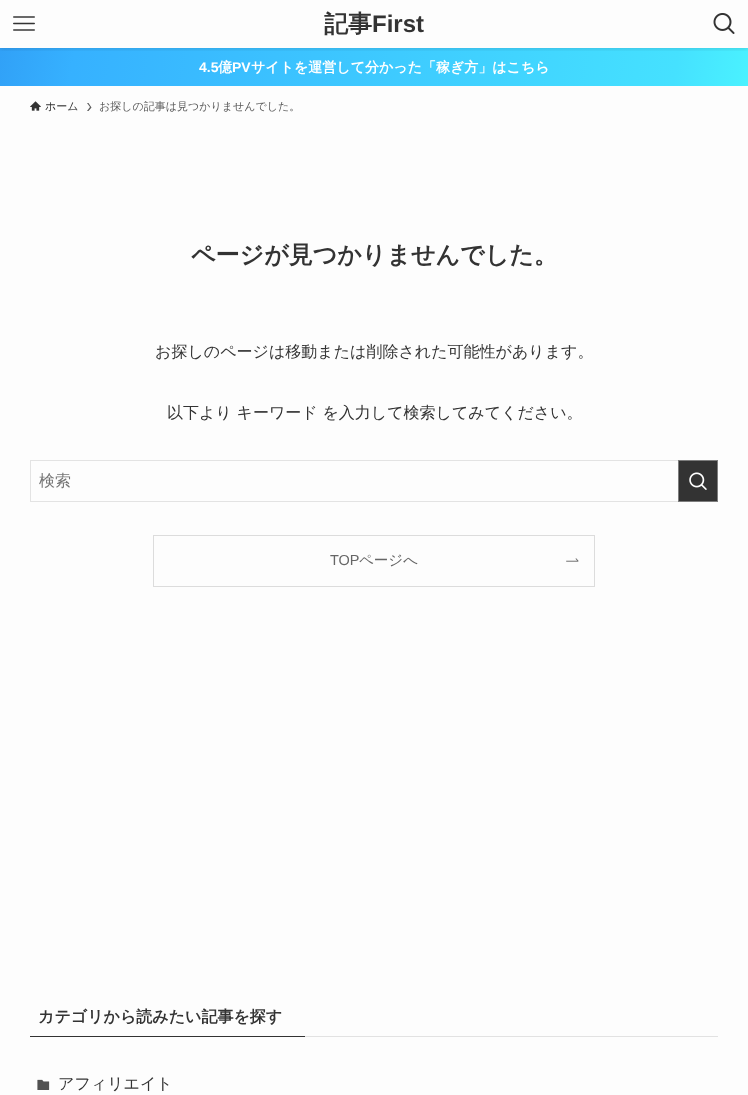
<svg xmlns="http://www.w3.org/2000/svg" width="748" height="1095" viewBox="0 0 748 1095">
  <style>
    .t1 { font: bold 24px WenQuanYi Zen Hei; fill: #333; }
    .t2 { font: bold 24px Liberation Sans; fill: #333; }
    .t3 { font: bold 14px Liberation Sans; fill: #fff; }
    .t4 { font: bold 14px WenQuanYi Zen Hei; fill: #fff; }
    .t5 { font: 500 11px WenQuanYi Zen Hei; fill: #333; }
    .t6 { font: 500 11px WenQuanYi Zen Hei; fill: #5b5b5b; }
    .t7 { font: 500 16px WenQuanYi Zen Hei; fill: #333; }
    .t8 { font: 500 16px WenQuanYi Zen Hei; fill: #757575; }
    .t9 { font: 14.5px Liberation Sans; fill: #666; }
    .t10 { font: 500 14.5px WenQuanYi Zen Hei; fill: #666; }
    .t11 { font: bold 16px WenQuanYi Zen Hei; fill: #333; }
  </style>
  <defs>
    <linearGradient id="g1" gradientUnits="userSpaceOnUse" x1="8" y1="2.5" x2="740" y2="132"><stop offset="0" stop-color="#31a1f7"/><stop offset="0.1" stop-color="#36b1ff"/><stop offset="0.9" stop-color="#45e1ff"/><stop offset="1" stop-color="#4af2ff"/></linearGradient>
    <clipPath id="clip1"><rect x="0" y="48" width="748" height="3"/></clipPath>
  </defs>
  <rect width="100%" height="100%" fill="#fdfdfd"/>
  <rect x="0" y="48" width="748" height="38" fill="url(#g1)"/>
  <g clip-path="url(#clip1)">
    <rect x="0" y="1" width="748" height="48" fill="#0000001f" filter="blur(2px)"/>
  </g>
  <image x="13" y="16" width="22" height="15" href="images/1.png"/>
  <text x="324" y="32" class="t1">記事</text>
  <text x="372" y="32" class="t2">First</text>
  <image x="713" y="13" width="22" height="21" href="images/2.png"/>
  <text x="199" y="72" class="t3">4.5</text>
  <text x="218" y="72" class="t4">億</text>
  <text x="232" y="72" class="t3">PV</text>
  <text x="251" y="72" class="t4">サイトを運営して分かった「稼ぎ方」はこちら</text>
  <image x="30" y="101" width="11" height="10" href="images/3.png"/>
  <text x="45" y="110" class="t5">ホーム</text>
  <path d="M88.5 103H87L90 107L87 111H88.5L91.5 107.5Z" fill="#5b5b5b"/>
  <text x="99" y="110" class="t6">お探しの記事は見つかりませんでした。</text>
  <text x="191" y="263" class="t1">ページが見つかりませんでした。</text>
  <text x="155" y="357" class="t7">お探しのページは移動または削除された可能性があります。</text>
  <text x="167" y="418" class="t7">以下より キーワード を入力して検索してみてください。</text>
  <rect x="30.5" y="460.5" width="687" height="41" fill="none" stroke="#e3e3e3"/>
  <text x="39" y="486" class="t8">検索</text>
  <rect x="678.5" y="460.5" width="39" height="41" fill="#333" stroke="#7d7d7d"/>
  <image x="689" y="472" width="18" height="18" href="images/4.png"/>
  <rect x="153.5" y="535.5" width="441" height="51" fill="none" stroke="#dcdcdc"/>
  <text x="330" y="565" class="t9">TOP</text>
  <text x="359" y="565" class="t10">ページへ</text>
  <image x="566" y="558" width="13" height="4" href="images/5.png"/>
  <text x="38" y="1022" class="t11">カテゴリから読みたい記事を探す</text>
  <rect x="30" y="1036" width="275" height="1" fill="#333"/>
  <rect x="305" y="1036" width="413" height="1" fill="#e2e2e2"/>
  <image x="37" y="1079" width="13" height="11" href="images/6.png"/>
  <text x="58" y="1089" class="t7">アフィリエイト</text>
</svg>
